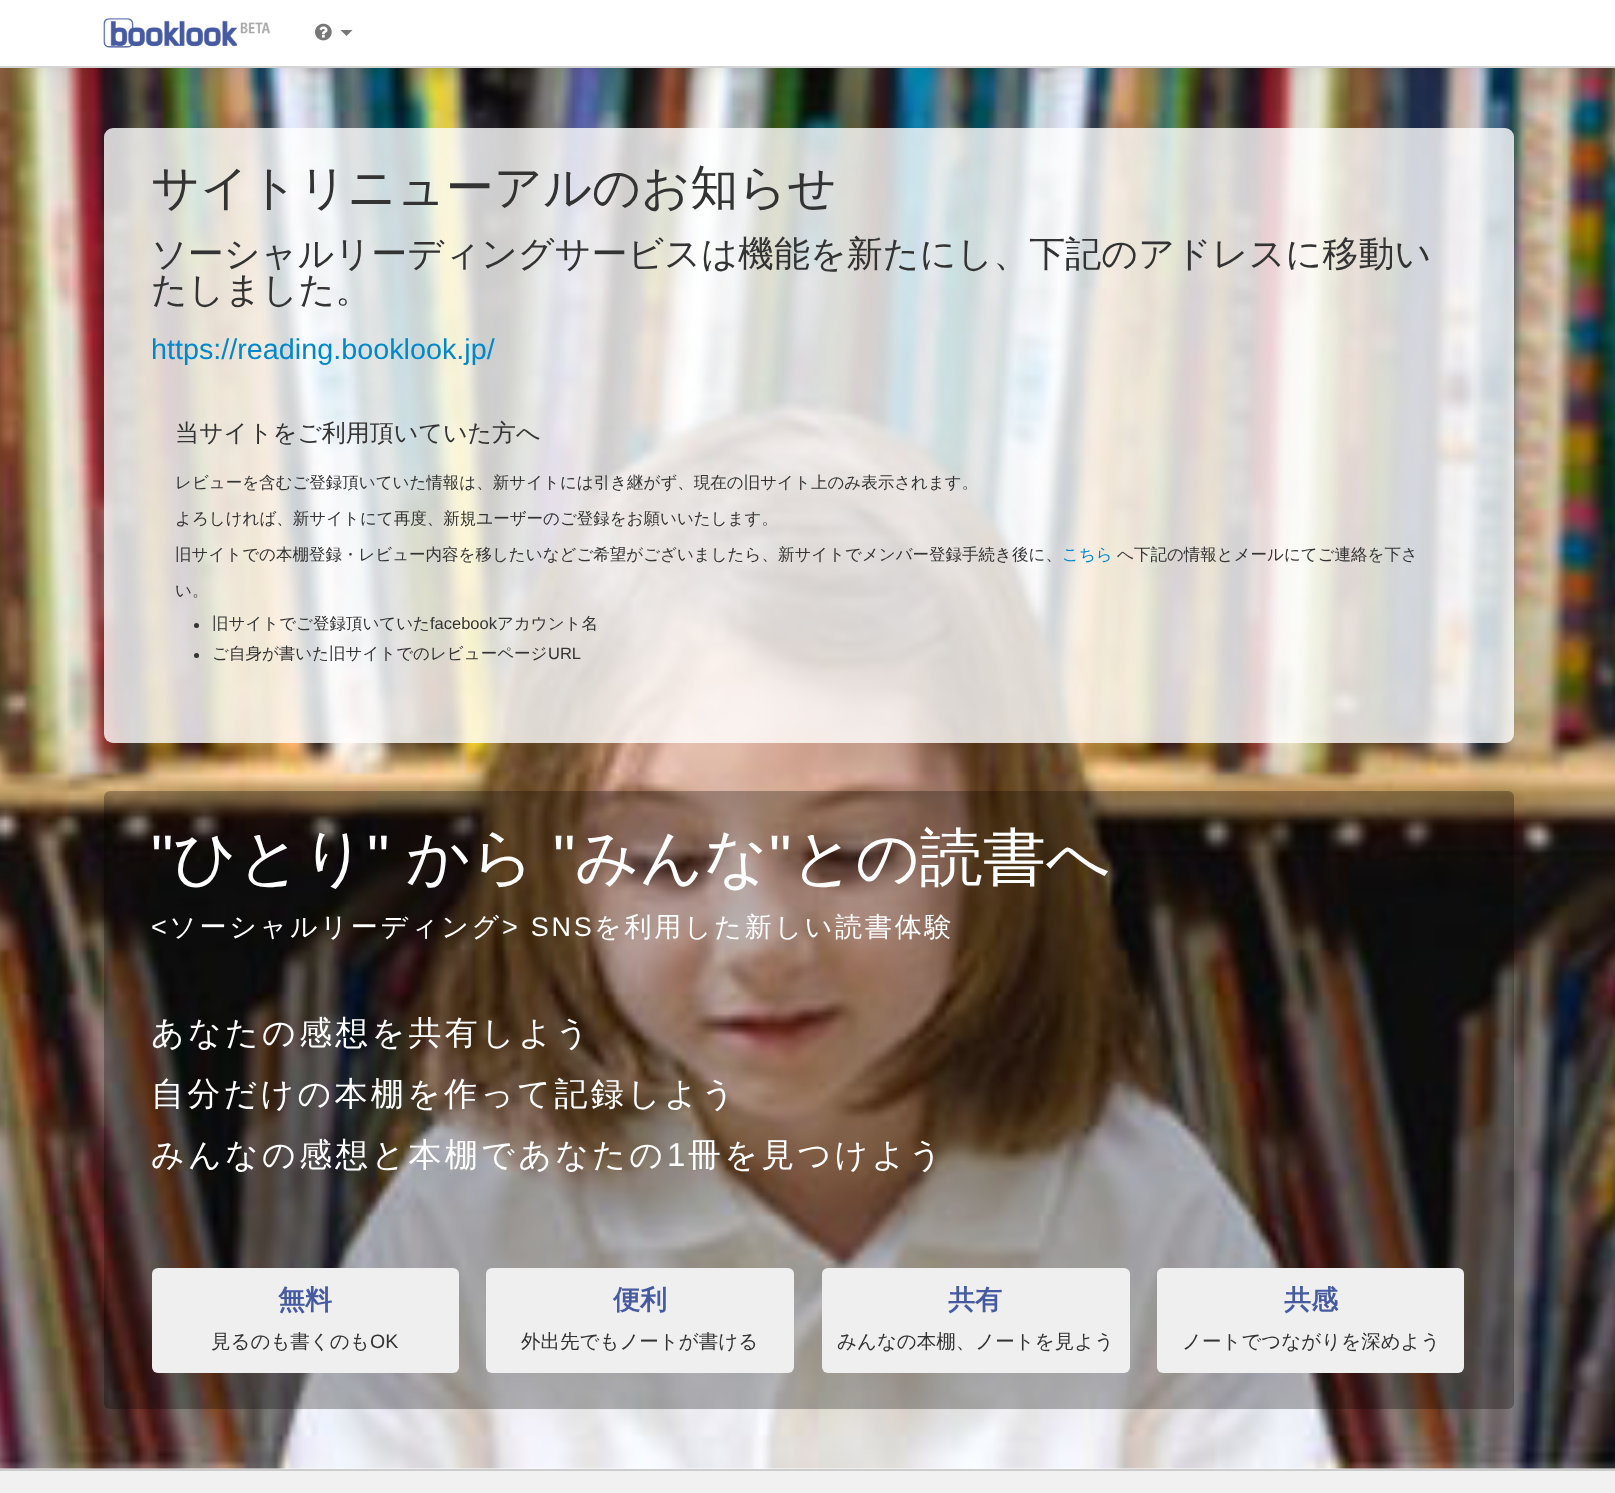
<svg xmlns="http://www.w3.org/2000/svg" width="1615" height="1493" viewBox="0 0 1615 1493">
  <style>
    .t1 { font: 500 48px WenQuanYi Zen Hei; fill: #333; }
    .t2 { font: 500 36px WenQuanYi Zen Hei; fill: #333; }
    .t3 { font: 28.75px Liberation Sans; fill: #08c; }
    .t4 { font: 500 24px WenQuanYi Zen Hei; fill: #333; }
    .t5 { font: 500 16.5px WenQuanYi Zen Hei; fill: #333; }
    .t6 { font: 500 16.5px WenQuanYi Zen Hei; fill: #08c; }
    .t7 { font: 16.5px Liberation Sans; fill: #333; }
    .t8 { font: 63px Liberation Sans; fill: #fff; }
    .t9 { font: 500 63px WenQuanYi Zen Hei; fill: #fff; }
    .t10 { font: 27px Liberation Sans; letter-spacing: 2.75px; fill: #fff; }
    .t11 { font: 500 27px WenQuanYi Zen Hei; letter-spacing: 2.75px; fill: #fff; }
    .t12 { font: 500 33px WenQuanYi Zen Hei; letter-spacing: 3.25px; fill: #fff; }
    .t13 { font: 33px Liberation Sans; letter-spacing: 3.25px; fill: #fff; }
    .t14 { font: bold 27px WenQuanYi Zen Hei; fill: #465aa1; }
    .t15 { font: 500 19.5px WenQuanYi Zen Hei; fill: #333; }
    .t16 { font: 19.5px Liberation Sans; fill: #333; }
  </style>
  <rect width="100%" height="100%" fill="#f1f1f1"/>
  <rect x="0" y="1468" width="1615" height="1" fill="#fff"/>
  <image x="0" y="68" width="1615" height="1401" href="images/3.png"/>
  <rect x="0" y="2" width="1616" height="67" fill="#0000001a" filter="blur(7.5px)"/>
  <rect x="0" y="0" width="1615" height="66" fill="#fff"/>
  <rect x="0" y="66" width="1615" height="2" fill="#d4d4d4"/>
  <image x="103" y="17" width="167" height="31" href="images/1.png"/>
  <image x="315" y="23" width="17" height="18" href="images/2.png"/>
  <path d="M340.5 30H352.5L346.5 36Z" fill="#777"/>
  <rect x="0" y="1469" width="1615" height="2" fill="#ccc"/>
  <rect x="104" y="128" width="1410" height="615" rx="9" fill="#ffffffcc"/>
  <text x="151" y="204" class="t1">サイトリニューアルのお知らせ</text>
  <text x="151" y="266" class="t2">ソーシャルリーディングサービスは機能を新たにし、下記のアドレスに移動い</text>
  <text x="151" y="302" class="t2">たしました。</text>
  <text x="151" y="359" class="t3">https://reading.booklook.jp/</text>
  <text x="175" y="441" class="t4">当サイトをご利用頂いていた方へ</text>
  <text x="175" y="488" class="t5">レビューを含むご登録頂いていた情報は、新サイトには引き継がず、現在の旧サイト上のみ表示されます。</text>
  <text x="175" y="524" class="t5">よろしければ、新サイトにて再度、新規ユーザーのご登録をお願いいたします。</text>
  <text x="175" y="560" class="t5">旧サイトでの本棚登録・レビュー内容を移したいなどご希望がございましたら、新サイトでメンバー登録手続き後に、</text>
  <text x="1062" y="560" class="t6">こちら</text>
  <text x="1117" y="560" class="t5">へ下記の情報とメールにてご連絡を下さ</text>
  <text x="175" y="596" class="t5">い。</text>
  <circle cx="196.5" cy="625.5" r="2.5" fill="#333"/>
  <text x="212" y="629" class="t5">旧サイトでご登録頂いていた</text>
  <text x="430" y="629" class="t7">facebook</text>
  <text x="497" y="629" class="t5">アカウント名</text>
  <circle cx="196.5" cy="655.5" r="2.5" fill="#333"/>
  <text x="212" y="659" class="t5">ご自身が書いた旧サイトでのレビューページ</text>
  <text x="548" y="659" class="t7">URL</text>
  <rect x="104" y="791" width="1410" height="618" rx="6" fill="#00000047"/>
  <text x="151" y="879" class="t8">"</text>
  <text x="173" y="879" class="t9">ひとり</text>
  <text x="367" y="879" class="t8">"</text>
  <text x="406" y="879" class="t9">から</text>
  <text x="553" y="879" class="t8">"</text>
  <text x="575" y="879" class="t9">みんな</text>
  <text x="769" y="879" class="t8">"</text>
  <text x="791" y="879" class="t9">との読書へ</text>
  <text x="151" y="936" class="t10">&lt;</text>
  <text x="169" y="936" class="t11">ソーシャルリーディング</text>
  <text x="502" y="936" class="t10">&gt; SNS</text>
  <text x="594" y="936" class="t11">を利用した新しい読書体験</text>
  <text x="151" y="1044" class="t12">あなたの感想を共有しよう</text>
  <text x="151" y="1105" class="t12">自分だけの本棚を作って記録しよう</text>
  <text x="151" y="1166" class="t12">みんなの感想と本棚であなたの</text>
  <text x="667" y="1166" class="t13">1</text>
  <text x="688" y="1166" class="t12">冊を見つけよう</text>
  <rect x="152" y="1268" width="307" height="105" rx="6" fill="#efefef"/>
  <text x="278" y="1309" class="t14">無料</text>
  <text x="211" y="1348" class="t15">見るのも書くのも</text>
  <text x="370" y="1348" class="t16">OK</text>
  <rect x="486" y="1268" width="308" height="105" rx="6" fill="#efefef"/>
  <text x="613" y="1309" class="t14">便利</text>
  <text x="521" y="1348" class="t15">外出先でもノートが書ける</text>
  <rect x="822" y="1268" width="308" height="105" rx="6" fill="#efefef"/>
  <text x="948" y="1309" class="t14">共有</text>
  <text x="837" y="1348" class="t15">みんなの本棚、ノートを見よう</text>
  <rect x="1157" y="1268" width="307" height="105" rx="6" fill="#efefef"/>
  <text x="1284" y="1309" class="t14">共感</text>
  <text x="1182" y="1348" class="t15">ノートでつながりを深めよう</text>
</svg>
